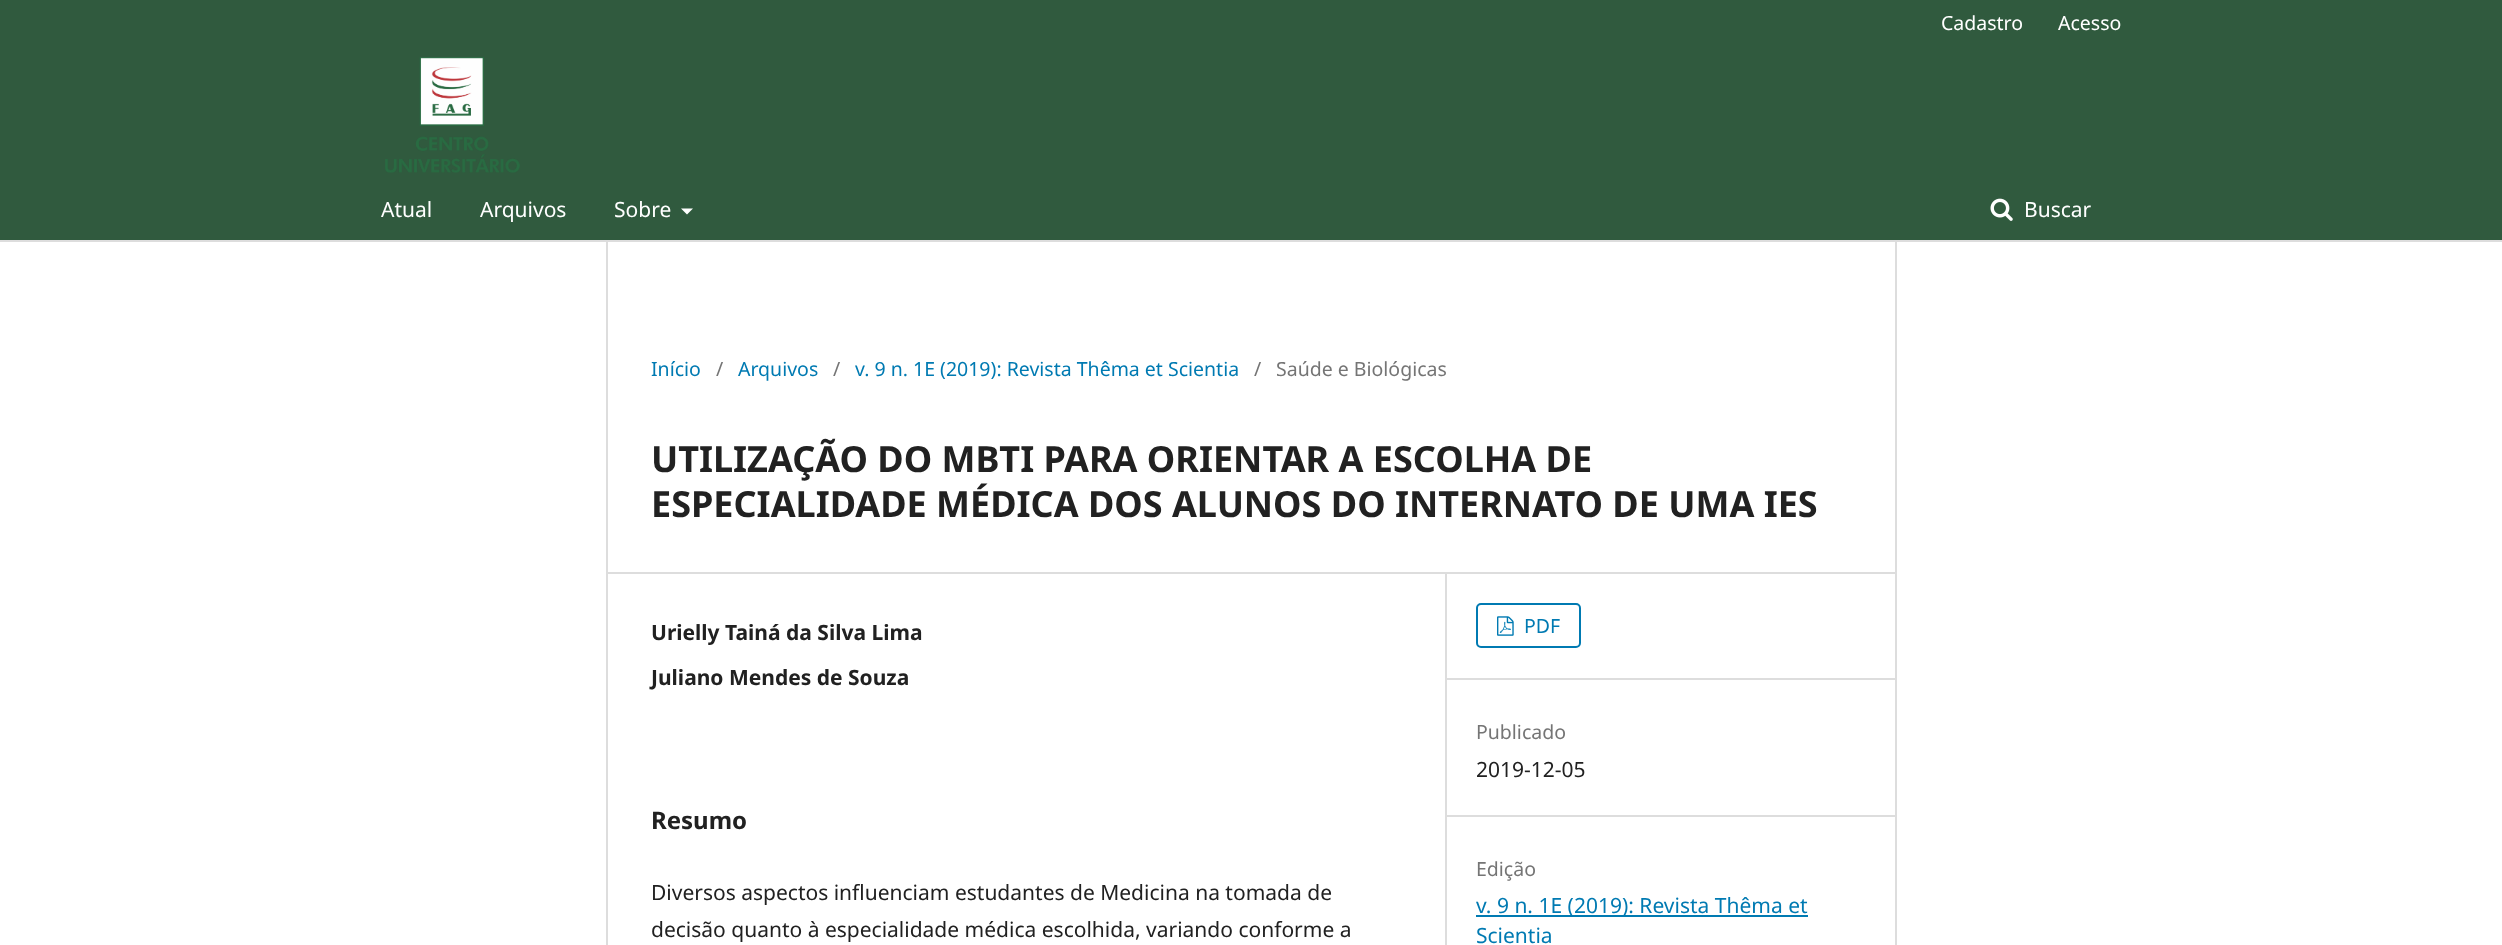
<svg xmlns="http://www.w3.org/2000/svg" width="2502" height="945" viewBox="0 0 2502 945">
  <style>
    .t1 { font: 19.5px Noto Sans; fill: #fff; }
    .t2 { font: 21px Noto Sans; fill: #fff; }
    .t3 { font: 19.5px Noto Sans; fill: #007ab2; }
    .t4 { font: 19.5px Noto Sans; fill: #757575; }
    .t5 { font: bold 36px Noto Sans; fill: #212121; }
    .t6 { font: bold 21px Noto Sans; fill: #212121; }
    .t7 { font: bold 24px Noto Sans; fill: #212121; }
    .t8 { font: 21px Noto Sans; fill: #212121; }
    .t9 { font: 21px Noto Sans; fill: #007ab2; }
  </style>
  <rect width="100%" height="100%" fill="#fff"/>
  <rect x="0" y="0" width="2502" height="240" fill="#305a3e"/>
  <rect x="0" y="240" width="2502" height="2" fill="#ddd"/>
  <text x="1941" y="30" class="t1">Cadastro</text>
  <text x="2058" y="30" class="t1">Acesso</text>
  <text x="381" y="217" class="t2">Atual</text>
  <text x="480" y="217" class="t2">Arquivos</text>
  <text x="614" y="217" class="t2">Sobre</text>
  <path d="M681 208.5H693L687 214.5Z" fill="#fff"/>
  <image x="1990" y="198" width="23" height="23" href="images/1.png"/>
  <text x="2024" y="217" class="t2">Buscar</text>
  <image x="385" y="57" width="135" height="116" href="images/2.png"/>
  <rect x="606" y="572" width="1290" height="2" fill="#ddd"/>
  <rect x="606" y="242" width="2" height="703" fill="#ddd"/>
  <text x="651" y="376" class="t3">Início</text>
  <text x="716" y="376" class="t4">/</text>
  <text x="738" y="376" class="t3">Arquivos</text>
  <text x="833" y="376" class="t4">/</text>
  <text x="855" y="376" class="t3">v. 9 n. 1E (2019): Revista Thêma et Scientia</text>
  <text x="1254" y="376" class="t4">/</text>
  <text x="1276" y="376" class="t4">Saúde e Biológicas</text>
  <text x="651" y="472" class="t5">UTILIZAÇÃO DO MBTI PARA ORIENTAR A ESCOLHA DE</text>
  <text x="651" y="517" class="t5">ESPECIALIDADE MÉDICA DOS ALUNOS DO INTERNATO DE UMA IES</text>
  <rect x="1445" y="573" width="2" height="372" fill="#ddd"/>
  <text x="651" y="640" class="t6">Urielly Tainá da Silva Lima</text>
  <text x="651" y="685" class="t6">Juliano Mendes de Souza</text>
  <text x="651" y="829" class="t7">Resumo</text>
  <text x="651" y="900" class="t8">Diversos aspectos influenciam estudantes de Medicina na tomada de</text>
  <text x="651" y="937" class="t8">decisão quanto à especialidade médica escolhida, variando conforme a</text>
  <rect x="1446" y="678" width="450" height="2" fill="#ddd"/>
  <rect x="1477" y="604" width="103" height="43" rx="4" fill="none" stroke="#007ab2" stroke-width="2"/>
  <image x="1497" y="616" width="17" height="20" href="images/3.png"/>
  <text x="1524" y="633" class="t3">PDF</text>
  <rect x="1446" y="815" width="450" height="2" fill="#ddd"/>
  <text x="1476" y="739" class="t4">Publicado</text>
  <text x="1476" y="777" class="t8">2019-12-05</text>
  <text x="1476" y="876" class="t4">Edição</text>
  <rect x="1476" y="915" width="332" height="2" fill="#007ab2"/>
  <text x="1476" y="913" class="t9">v. 9 n. 1E (2019): Revista Thêma et</text>
  <text x="1476" y="943" class="t9">Scientia</text>
  <rect x="1895" y="242" width="2" height="703" fill="#ddd"/>
</svg>
